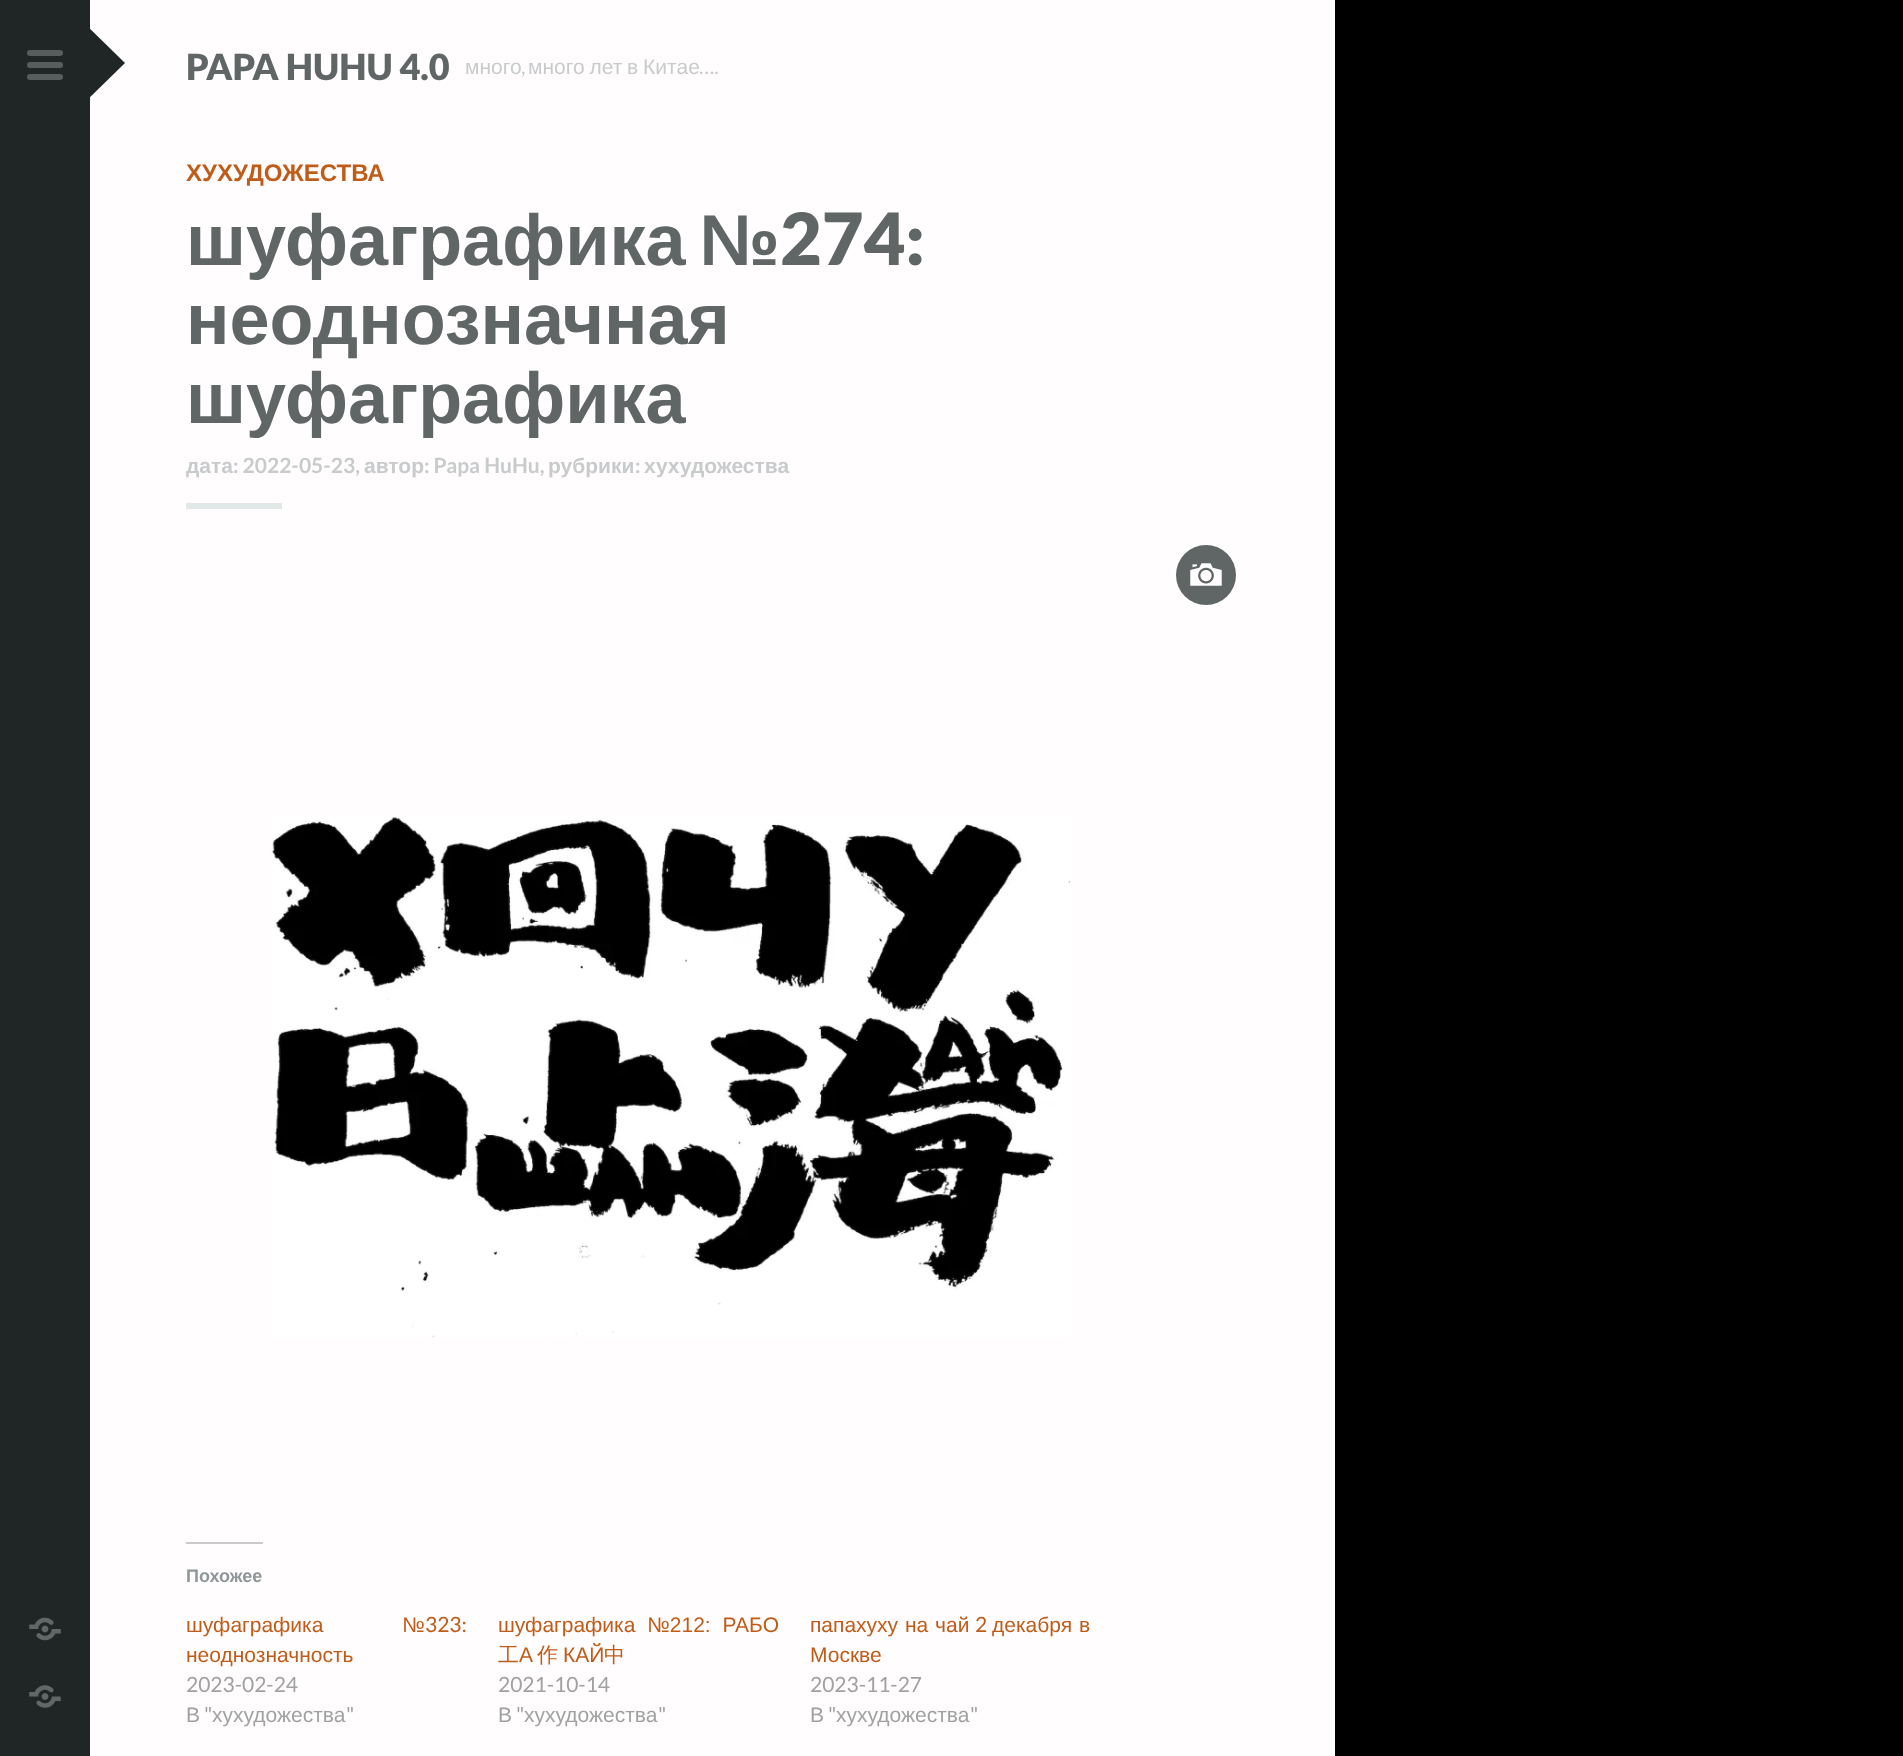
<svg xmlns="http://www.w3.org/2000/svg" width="1903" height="1756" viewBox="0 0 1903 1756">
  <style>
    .t1 { font: 900 36px Lato; fill: #606666; }
    .t2 { font: 21px Liberation Sans; fill: #c8cbcc; }
    .t3 { font: 21px Lato; fill: #c8cbcc; }
    .t4 { font: bold 24px Liberation Sans; fill: #bf5c19; }
    .t5 { font: bold 72px Liberation Sans; fill: #606666; }
    .t6 { font: 900 72px Lato; fill: #606666; }
    .t7 { font: bold 21px Liberation Sans; fill: #c8cbcc; }
    .t8 { font: bold 21px Lato; fill: #c8cbcc; }
    .t9 { font: bold 18px Liberation Sans; fill: #8f9699; }
    .t10 { font: 21px Liberation Sans; fill: #bf5c19; }
    .t11 { font: 21px Lato; fill: #bf5c19; }
    .t12 { font: 21px Lato; fill: #a0a2a2; }
    .t13 { font: 21px Liberation Sans; fill: #a0a2a2; }
    .t14 { font: 500 21px WenQuanYi Zen Hei; fill: #bf5c19; }
  </style>
  <rect width="100%" height="100%" fill="#000"/>
  <rect x="0" y="0" width="90" height="1756" fill="#202626"/>
  <rect x="90" y="0" width="1245" height="1756" fill="#fffdfd"/>
  <path d="M82 21L125 63L82 105L40 63Z" fill="#202626"/>
  <rect x="27" y="62" width="36" height="6" rx="3" fill="#585c5c"/>
  <rect x="27" y="50" width="36" height="6" rx="3" fill="#585c5c"/>
  <rect x="27" y="74" width="36" height="6" rx="3" fill="#585c5c"/>
  <image x="29" y="1617" width="32" height="24" href="images/1.png"/>
  <image x="29" y="1685" width="32" height="23" href="images/2.png"/>
  <text x="186" y="80" class="t1">PAPA HUHU 4.0</text>
  <text x="465" y="74" class="t2">много</text>
  <text x="521" y="74" class="t3">,</text>
  <text x="528" y="74" word-spacing="-1" class="t2">много лет в Китае</text>
  <text x="699" y="74" class="t3">….</text>
  <text x="186" y="181" class="t4">ХУХУДОЖЕСТВА</text>
  <text x="186" y="265" word-spacing="-6" class="t5">шуфаграфика №</text>
  <text x="780" y="265" class="t6">274:</text>
  <text x="186" y="344" class="t5">неоднозначная</text>
  <text x="186" y="423" class="t5">шуфаграфика</text>
  <text x="186" y="473" class="t7">дата</text>
  <text x="233" y="473" class="t8">: 2022-05-23,</text>
  <text x="364" y="473" class="t7">автор</text>
  <text x="424" y="473" class="t8">: Papa HuHu,</text>
  <text x="548" y="473" class="t7">рубрики</text>
  <text x="635" y="473" class="t8">:</text>
  <text x="644" y="473" class="t7">хухудожества</text>
  <rect x="186" y="503" width="96" height="6" fill="#e2e7e8"/>
  <circle cx="1206" cy="575" r="30" fill="#606666"/>
  <image x="1190" y="563" width="32" height="23" href="images/3.png"/>
  <image x="271" y="815" width="800" height="523" href="images/4.png"/>
  <rect x="186" y="1542" width="77" height="2" fill="#cccaca"/>
  <text x="186" y="1582" class="t9">Похожее</text>
  <text x="186" y="1632" word-spacing="73" class="t10">шуфаграфика №</text>
  <text x="425" y="1632" class="t11">323:</text>
  <text x="186" y="1662" class="t10">неоднозначность</text>
  <text x="186" y="1692" class="t12">2023-02-24</text>
  <text x="186" y="1722" class="t13">В</text>
  <text x="204" y="1722" class="t12">"</text>
  <text x="212" y="1722" class="t13">хухудожества</text>
  <text x="346" y="1722" class="t12">"</text>
  <text x="498" y="1632" word-spacing="6" class="t10">шуфаграфика №212: РАБО</text>
  <text x="498" y="1662" class="t14">工</text>
  <text x="519" y="1662" class="t10">А</text>
  <text x="537" y="1662" class="t14">作</text>
  <text x="563" y="1662" class="t10">КАЙ</text>
  <text x="604" y="1662" class="t14">中</text>
  <text x="498" y="1692" class="t12">2021-10-14</text>
  <text x="498" y="1722" class="t13">В</text>
  <text x="516" y="1722" class="t12">"</text>
  <text x="524" y="1722" class="t13">хухудожества</text>
  <text x="658" y="1722" class="t12">"</text>
  <text x="810" y="1632" word-spacing="1" class="t10">папахуху на чай</text>
  <text x="975" y="1632" class="t11">2</text>
  <text x="992" y="1632" word-spacing="1" class="t10">декабря в</text>
  <text x="810" y="1662" class="t10">Москве</text>
  <text x="810" y="1692" class="t12">2023-11-27</text>
  <text x="810" y="1722" class="t13">В</text>
  <text x="828" y="1722" class="t12">"</text>
  <text x="836" y="1722" class="t13">хухудожества</text>
  <text x="970" y="1722" class="t12">"</text>
</svg>
